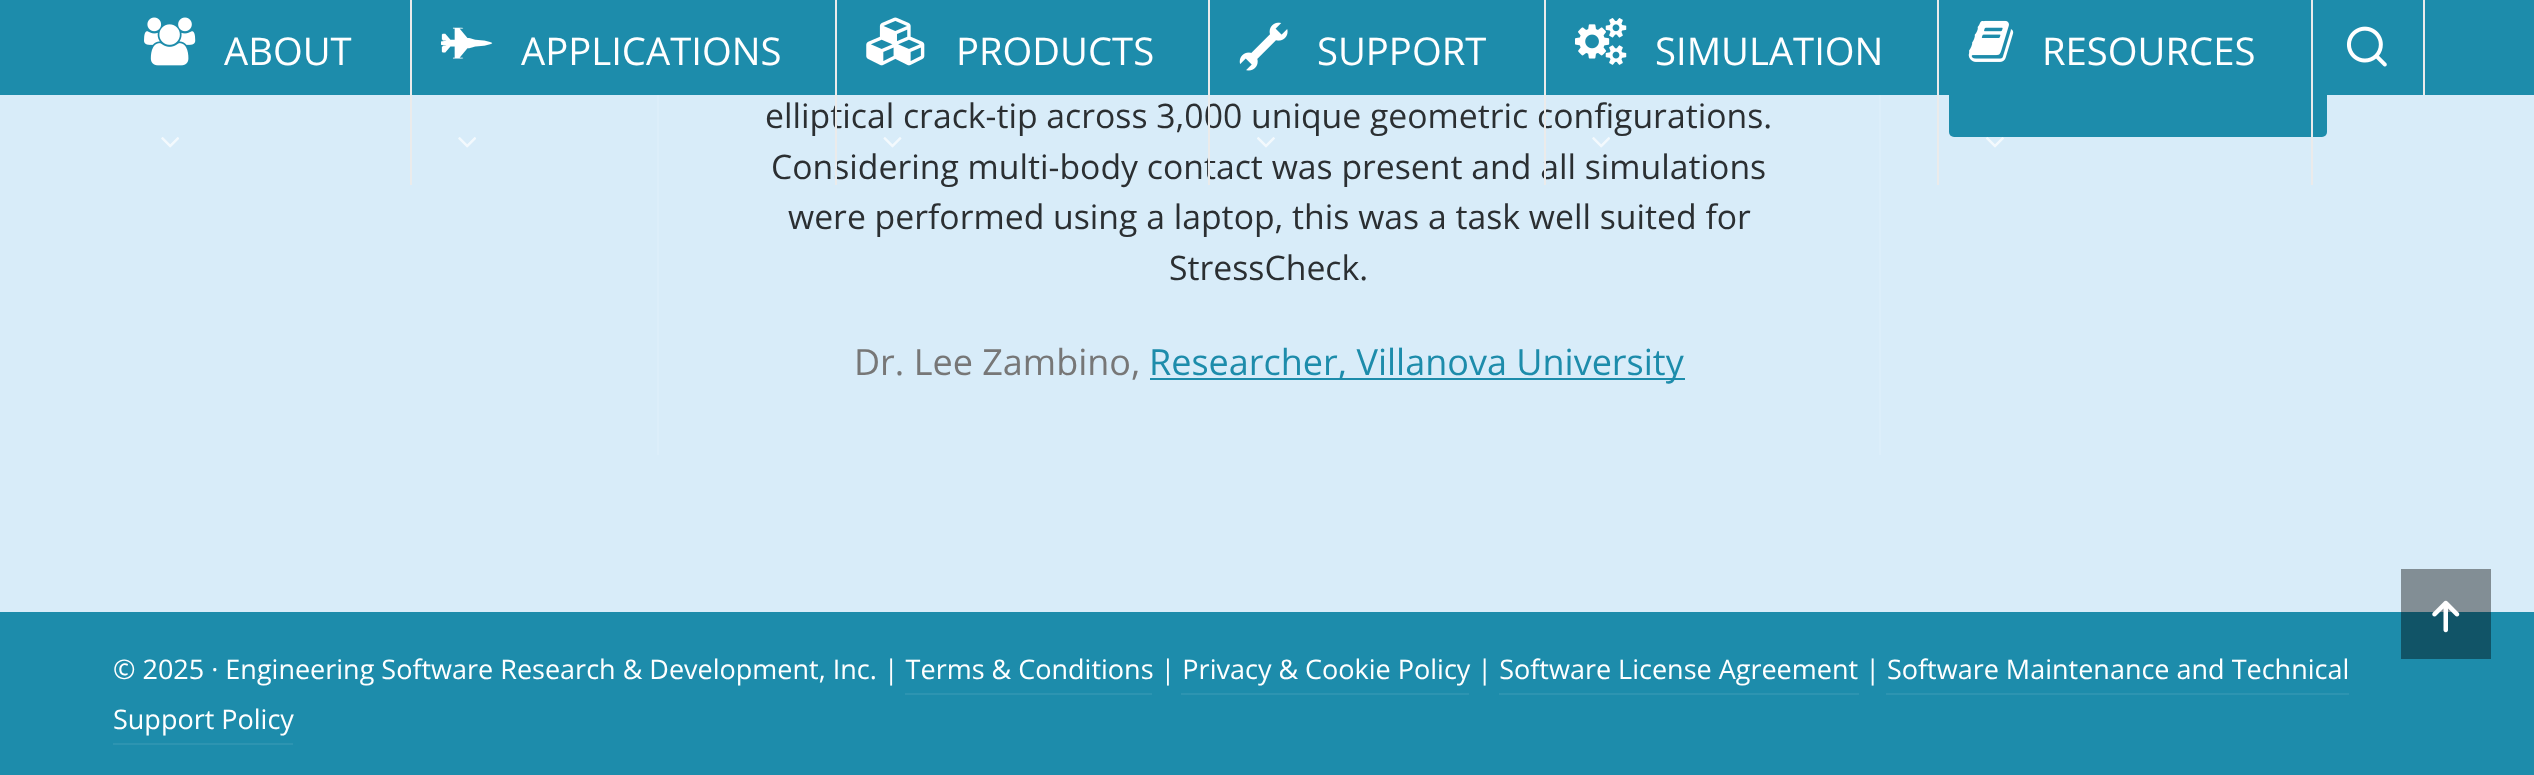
<svg xmlns="http://www.w3.org/2000/svg" width="2534" height="775" viewBox="0 0 2534 775">
  <style>
    .t1 { font: 38.25px Open Sans; fill: #fff; }
    .t2 { font: 33.75px Open Sans; fill: #2b2f32; }
    .t3 { font: 36px Open Sans; fill: #777; }
    .t4 { font: 36px Open Sans; fill: #1d8cab; }
    .t5 { font: 27px Open Sans; fill: #fff; }
  </style>
  <rect width="100%" height="100%" fill="#d8ecf9"/>
  <rect x="1949" y="16" width="378" height="121" rx="5" fill="#1d8cab"/>
  <rect x="0" y="0" width="2534" height="95" fill="#1d8cab"/>
  <rect x="410" y="0" width="2" height="185" fill="#ebebeb"/>
  <image x="144" y="17" width="52" height="49" href="images/1.png"/>
  <text x="224" y="65" class="t1">ABOUT</text>
  <image x="161" y="137" width="18" height="11" href="images/2.png"/>
  <text x="765" y="128" class="t2">elliptical crack-tip across 3,000 unique geometric configurations.</text>
  <text x="771" y="179" class="t2">Considering multi-body contact was present and all simulations</text>
  <rect x="835" y="0" width="2" height="185" fill="#ebebeb"/>
  <image x="441" y="27" width="52" height="32" href="images/3.png"/>
  <text x="521" y="65" class="t1">APPLICATIONS</text>
  <image x="458" y="137" width="18" height="11" href="images/2.png"/>
  <rect x="1208" y="0" width="2" height="185" fill="#ebebeb"/>
  <image x="866" y="17" width="59" height="49" href="images/4.png"/>
  <text x="956" y="65" class="t1">PRODUCTS</text>
  <image x="883" y="137" width="19" height="11" href="images/5.png"/>
  <rect x="1544" y="0" width="2" height="185" fill="#ebebeb"/>
  <image x="1239" y="22" width="49" height="49" href="images/6.png"/>
  <text x="1317" y="65" class="t1">SUPPORT</text>
  <image x="1257" y="137" width="18" height="11" href="images/7.png"/>
  <rect x="1937" y="0" width="2" height="185" fill="#ebebeb"/>
  <image x="1575" y="18" width="52" height="47" href="images/8.png"/>
  <text x="1655" y="65" class="t1">SIMULATION</text>
  <image x="1592" y="137" width="18" height="11" href="images/2.png"/>
  <rect x="2311" y="0" width="2" height="185" fill="#ebebeb"/>
  <image x="1968" y="20" width="46" height="42" href="images/9.png"/>
  <text x="2042" y="65" class="t1">RESOURCES</text>
  <image x="1986" y="137" width="18" height="11" href="images/7.png"/>
  <rect x="2423" y="0" width="2" height="95" fill="#ebebeb"/>
  <image x="2346" y="26" width="41" height="41" href="images/10.png"/>
  <rect x="2401" y="569" width="90" height="43" fill="#828e95"/>
  <rect x="657" y="95" width="2" height="360" fill="#dceefa"/>
  <text x="788" y="229" class="t2">were performed using a laptop, this was a task well suited for</text>
  <text x="1169" y="280" class="t2">StressCheck.</text>
  <text x="854" y="375" class="t3">Dr. Lee Zambino,</text>
  <rect x="1150" y="378" width="535" height="2" fill="#1d8cab"/>
  <text x="1149" y="375" class="t4">Researcher, Villanova University</text>
  <rect x="1879" y="95" width="2" height="360" fill="#dceefa"/>
  <rect x="0" y="612" width="2534" height="163" fill="#1d8cab"/>
  <rect x="2401" y="612" width="90" height="47" fill="#115467"/>
  <image x="2432" y="600" width="28" height="33" href="images/11.png"/>
  <text x="113" y="679" class="t5">© 2025 · Engineering Software Research &amp; Development, Inc. | Terms &amp; Conditions | Privacy &amp; Cookie Policy | Software License Agreement | Software Maintenance and Technical</text>
  <rect x="905" y="693" width="247" height="2" fill="#2d94b1"/>
  <rect x="1181" y="693" width="288" height="2" fill="#2d94b1"/>
  <rect x="1499" y="693" width="360" height="2" fill="#2d94b1"/>
  <text x="113" y="729" class="t5">Support Policy</text>
  <rect x="1886" y="693" width="463" height="2" fill="#2d94b1"/>
  <rect x="113" y="743" width="180" height="2" fill="#2d94b1"/>
</svg>
